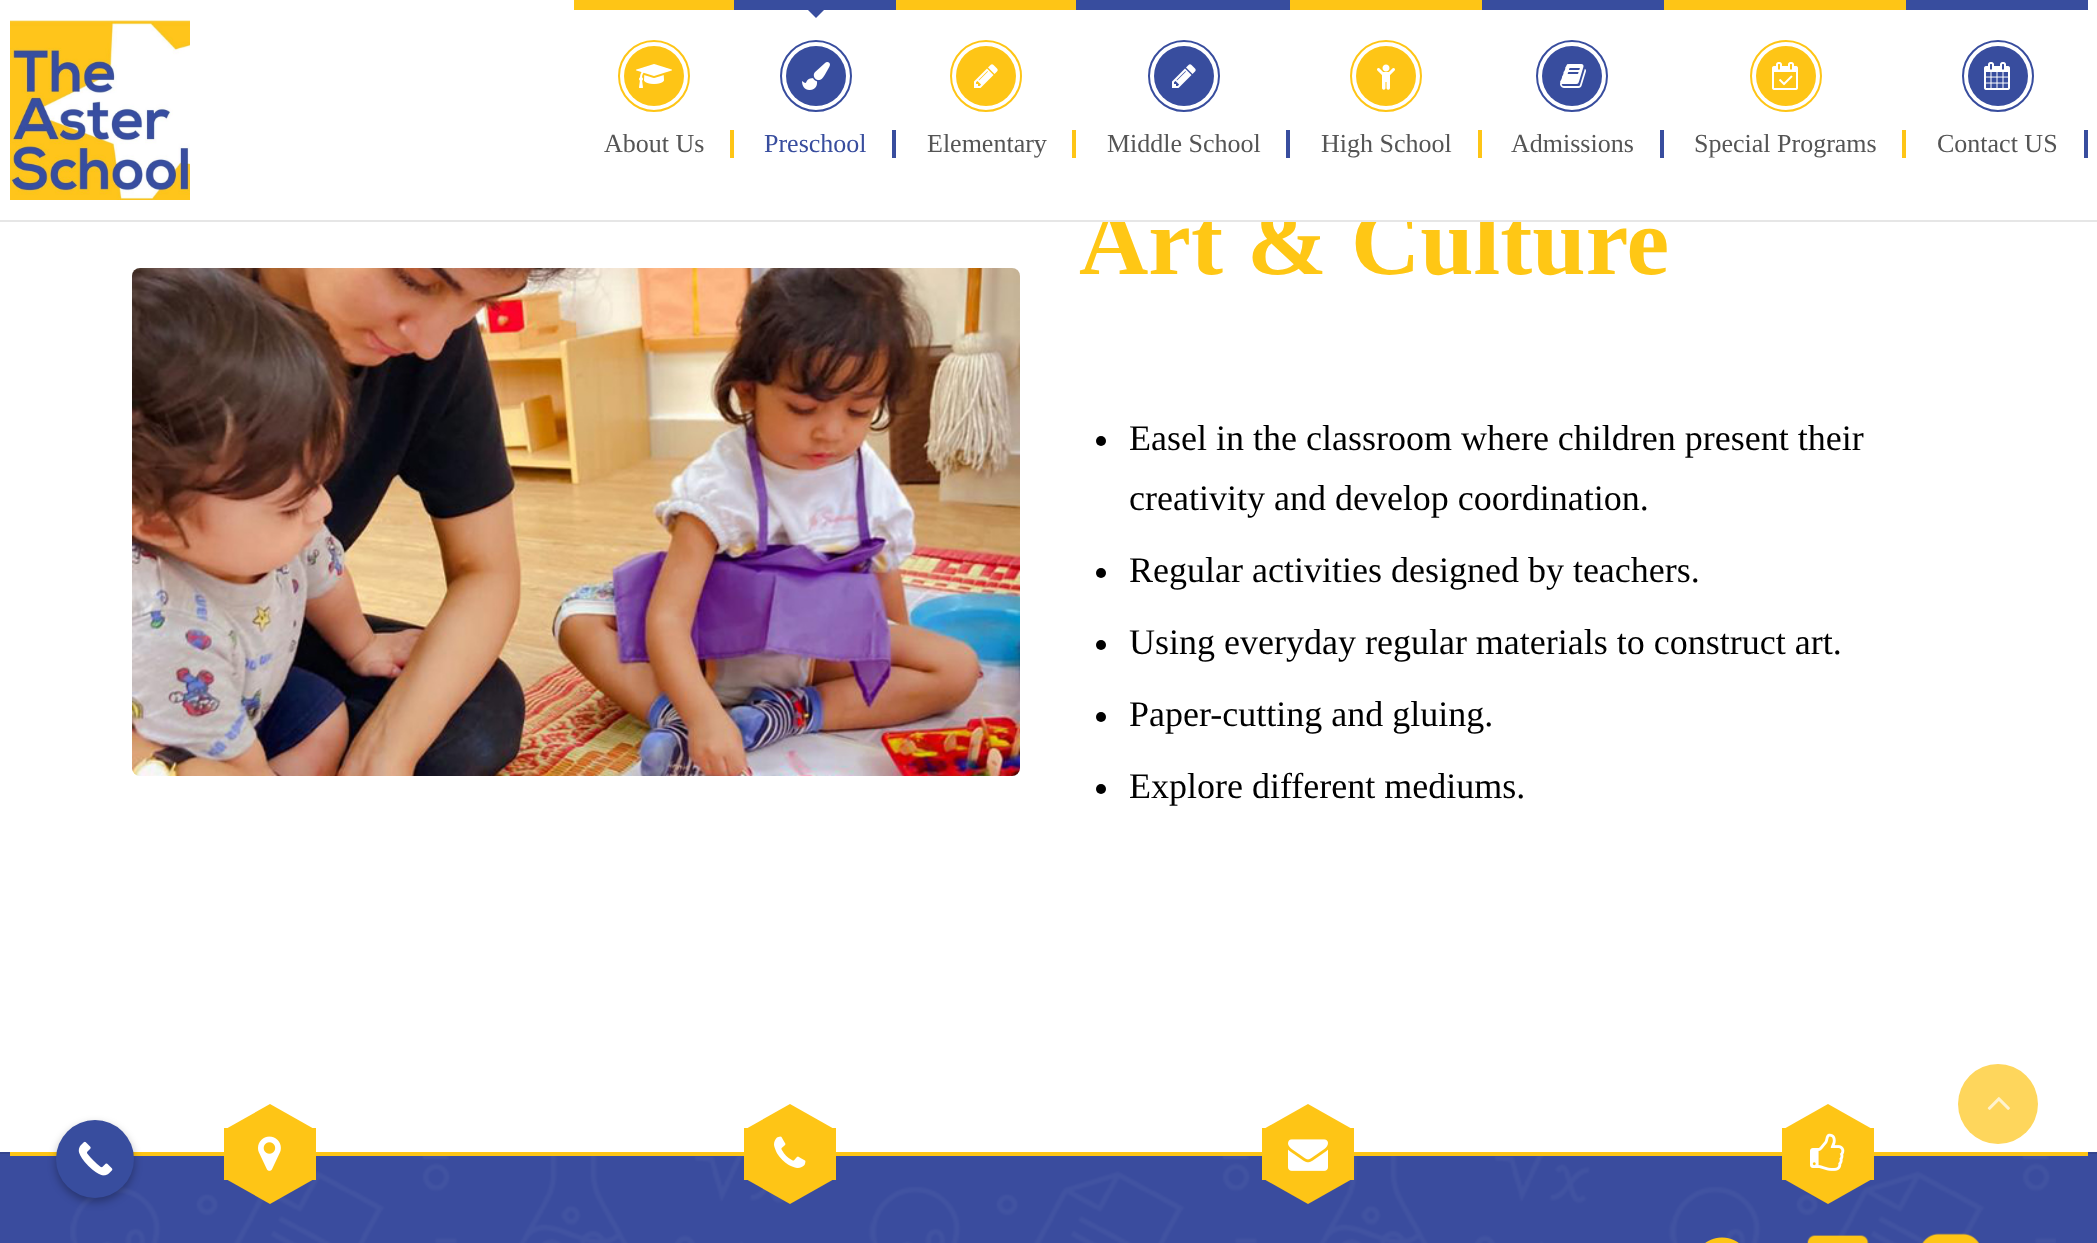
<svg xmlns="http://www.w3.org/2000/svg" width="2097" height="1243" viewBox="0 0 2097 1243">
  <style>
    .t1 { font: bold 96px Liberation Serif; fill: #ffc715; }
    .t2 { font: 26px Liberation Serif; fill: #555; }
    .t3 { font: 26px Liberation Serif; fill: #384d9e; }
    .t4 { font: 36px Liberation Serif; fill: #000; }
  </style>
  <rect width="100%" height="100%" fill="#fff"/>
  <text x="1079" y="274" class="t1">Art &amp; Culture</text>
  <rect x="1103" y="207" width="418" height="13" fill="#fff"/>
  <rect x="0" y="220" width="2097" height="2" fill="#e6e6e6"/>
  <image x="10" y="20" width="180" height="180" href="images/1.png"/>
  <rect x="574" y="0" width="160" height="10" fill="#fec516"/>
  <circle cx="654" cy="76" r="30" fill="#fec516"/>
  <circle cx="654" cy="76" r="35" fill="none" stroke="#fec516" stroke-width="2"/>
  <image x="636" y="64" width="36" height="24" href="images/2.png"/>
  <text x="604" y="152" class="t2">About Us</text>
  <rect x="730" y="130" width="4" height="28" fill="#fec516"/>
  <path d="M798 0H834L816 18Z" fill="#384d9e"/>
  <rect x="734" y="0" width="162" height="10" fill="#384d9e"/>
  <circle cx="816" cy="76" r="30" fill="#384d9e"/>
  <circle cx="816" cy="76" r="35" fill="none" stroke="#384d9e" stroke-width="2"/>
  <image x="802" y="62" width="28" height="28" href="images/3.png"/>
  <text x="764" y="152" class="t3">Preschool</text>
  <rect x="892" y="130" width="4" height="28" fill="#384d9e"/>
  <rect x="896" y="0" width="180" height="10" fill="#fec516"/>
  <circle cx="986" cy="76" r="30" fill="#fec516"/>
  <circle cx="986" cy="76" r="35" fill="none" stroke="#fec516" stroke-width="2"/>
  <image x="974" y="64" width="24" height="24" href="images/4.png"/>
  <text x="927" y="152" class="t2">Elementary</text>
  <rect x="1072" y="130" width="4" height="28" fill="#fec516"/>
  <rect x="1076" y="0" width="214" height="10" fill="#384d9e"/>
  <circle cx="1184" cy="76" r="30" fill="#384d9e"/>
  <circle cx="1184" cy="76" r="35" fill="none" stroke="#384d9e" stroke-width="2"/>
  <image x="1172" y="64" width="24" height="24" href="images/5.png"/>
  <text x="1107" y="152" class="t2">Middle School</text>
  <rect x="1286" y="130" width="4" height="28" fill="#384d9e"/>
  <rect x="1290" y="0" width="192" height="10" fill="#fec516"/>
  <circle cx="1386" cy="76" r="30" fill="#fec516"/>
  <circle cx="1386" cy="76" r="35" fill="none" stroke="#fec516" stroke-width="2"/>
  <image x="1377" y="64" width="18" height="26" href="images/6.png"/>
  <text x="1321" y="152" class="t2">High School</text>
  <rect x="1478" y="130" width="4" height="28" fill="#fec516"/>
  <rect x="1482" y="0" width="182" height="10" fill="#384d9e"/>
  <circle cx="1572" cy="76" r="30" fill="#384d9e"/>
  <circle cx="1572" cy="76" r="35" fill="none" stroke="#384d9e" stroke-width="2"/>
  <image x="1560" y="64" width="26" height="24" href="images/7.png"/>
  <text x="1511" y="152" class="t2">Admissions</text>
  <rect x="1660" y="130" width="4" height="28" fill="#384d9e"/>
  <rect x="1664" y="0" width="242" height="10" fill="#fec516"/>
  <circle cx="1786" cy="76" r="30" fill="#fec516"/>
  <circle cx="1786" cy="76" r="35" fill="none" stroke="#fec516" stroke-width="2"/>
  <image x="1772" y="62" width="26" height="28" href="images/8.png"/>
  <text x="1694" y="152" class="t2">Special Programs</text>
  <rect x="1902" y="130" width="4" height="28" fill="#fec516"/>
  <rect x="1906" y="0" width="182" height="10" fill="#384d9e"/>
  <circle cx="1998" cy="76" r="30" fill="#384d9e"/>
  <circle cx="1998" cy="76" r="35" fill="none" stroke="#384d9e" stroke-width="2"/>
  <image x="1984" y="62" width="26" height="28" href="images/9.png"/>
  <text x="1937" y="152" class="t2">Contact US</text>
  <rect x="2084" y="130" width="4" height="28" fill="#384d9e"/>
  <image x="132" y="268" width="888" height="508" href="images/10.png"/>
  <circle cx="1101" cy="441" r="5" fill="#000"/>
  <text x="1129" y="450" class="t4">Easel in the classroom where children present their</text>
  <text x="1129" y="510" class="t4">creativity and develop coordination.</text>
  <circle cx="1101" cy="573" r="5" fill="#000"/>
  <text x="1129" y="582" class="t4">Regular activities designed by teachers.</text>
  <circle cx="1101" cy="645" r="5" fill="#000"/>
  <text x="1129" y="654" class="t4">Using everyday regular materials to construct art.</text>
  <circle cx="1101" cy="717" r="5" fill="#000"/>
  <text x="1129" y="726" class="t4">Paper-cutting and gluing.</text>
  <circle cx="1101" cy="789" r="5" fill="#000"/>
  <text x="1129" y="798" class="t4">Explore different mediums.</text>
  <circle cx="1998" cy="1104" r="40" fill="#fed65c"/>
  <image x="1987" y="1097" width="23" height="13" href="images/11.png"/>
  <rect x="0" y="1152" width="2097" height="91" fill="#3a4c9e"/>
  <image x="70" y="1156" width="1986" height="87" href="images/12.png"/>
  <rect x="0" y="1152" width="2097" height="2" fill="#0000001a"/>
  <rect x="10" y="1152" width="2078" height="4" fill="#fec516"/>
  <rect x="224" y="1128" width="92" height="52" fill="#fec516"/>
  <path d="M316 1130H224L270 1104Z" fill="#fec516"/>
  <image x="258" y="1136" width="23" height="35" href="images/13.png"/>
  <path d="M224 1178H316L270 1204Z" fill="#fec516"/>
  <rect x="744" y="1128" width="92" height="52" fill="#fec516"/>
  <path d="M836 1130H744L790 1104Z" fill="#fec516"/>
  <image x="774" y="1136" width="32" height="32" href="images/14.png"/>
  <path d="M744 1178H836L790 1204Z" fill="#fec516"/>
  <rect x="1262" y="1128" width="92" height="52" fill="#fec516"/>
  <path d="M1354 1130H1262L1308 1104Z" fill="#fec516"/>
  <image x="1288" y="1139" width="40" height="32" href="images/15.png"/>
  <path d="M1262 1178H1354L1308 1204Z" fill="#fec516"/>
  <rect x="1782" y="1128" width="92" height="52" fill="#fec516"/>
  <path d="M1874 1130H1782L1828 1104Z" fill="#fec516"/>
  <image x="1810" y="1133" width="35" height="38" href="images/16.png"/>
  <path d="M1782 1178H1874L1828 1204Z" fill="#fec516"/>
  <image x="1705" y="1237" width="34" height="6" href="images/17.png"/>
  <image x="1807" y="1235" width="62" height="8" href="images/18.png"/>
  <image x="1922" y="1233" width="57" height="10" href="images/19.png"/>
  <rect x="56" y="1124" width="78" height="78" rx="39" fill="#0000004d" filter="blur(4px)"/>
  <circle cx="95" cy="1159" r="39" fill="#384d9e"/>
  <image x="78" y="1141" width="35" height="35" href="images/20.png"/>
</svg>
